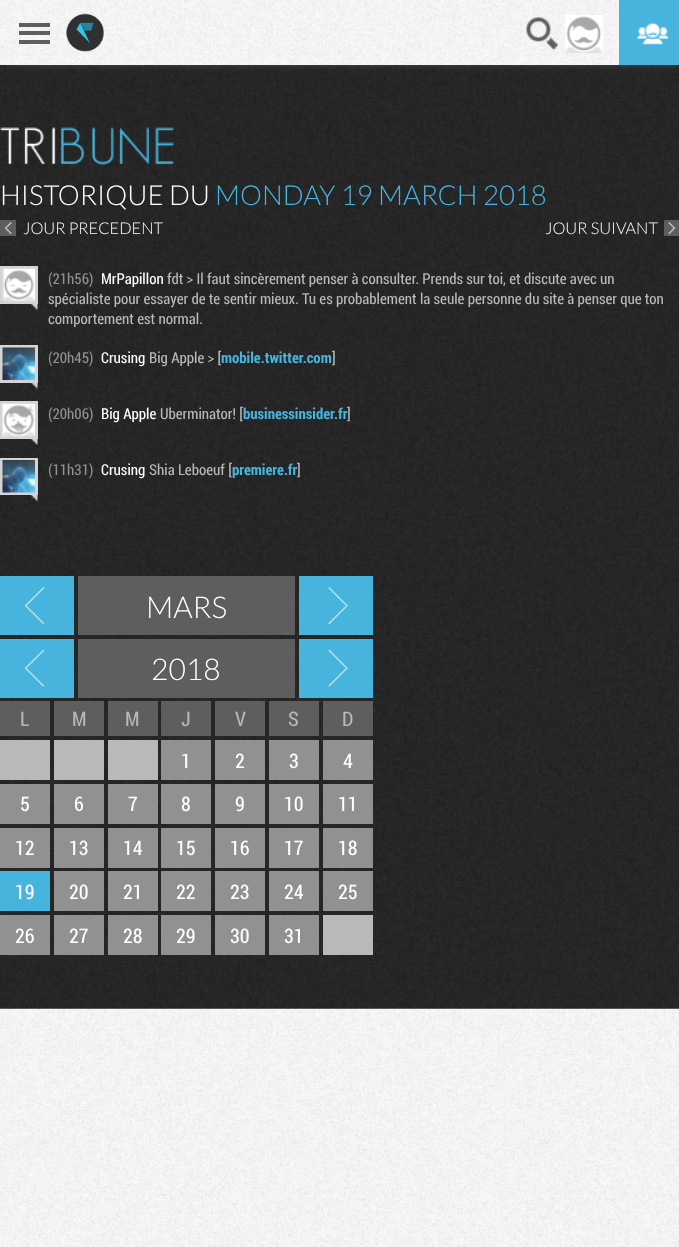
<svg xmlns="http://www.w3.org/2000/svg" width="679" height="1247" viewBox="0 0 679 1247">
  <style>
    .t1 { font: 300 27.5px Lato; fill: #fff; }
    .t2 { font: 300 27.5px Lato; fill: #47b4dd; }
    .t3 { font: 300 16.25px Lato; fill: #fff; }
    .t4 { font: 15px Roboto Condensed; fill: #919191; }
    .t5 { font: 15px Roboto Condensed; fill: #fff; }
    .t6 { font: 15px Roboto Condensed; fill: #b9b9b9; }
    .t7 { font: bold 15px Roboto Condensed; fill: #47b4dd; }
    .t8 { font: 300 30px Lato; fill: #fff; }
    .t9 { font: 20px Roboto Condensed; fill: #b9b9b9; }
    .t10 { font: 20px Roboto Condensed; fill: #fff; }
  </style>
  <rect width="100%" height="100%" fill="#fff"/>
  <image x="0" y="1008" width="679" height="239" href="images/1.png"/>
  <image x="0" y="65" width="679" height="944" href="images/7.png"/>
  <rect x="3" y="3" width="675" height="60" fill="#5e5e5e" filter="blur(4px)"/>
  <image x="0" y="0" width="619" height="65" href="images/2.png"/>
  <rect x="19" y="23" width="31" height="4" fill="#5e5e5e"/>
  <rect x="19" y="31" width="31" height="4" fill="#5e5e5e"/>
  <rect x="19" y="40" width="31" height="4" fill="#5e5e5e"/>
  <image x="66" y="13" width="38" height="39" href="images/3.png"/>
  <image x="526" y="17" width="32" height="34" href="images/4.png"/>
  <image x="565" y="15" width="38" height="38" href="images/5.png"/>
  <rect x="619" y="0" width="60" height="65" fill="#47b4dd"/>
  <image x="636" y="22" width="34" height="24" href="images/6.png"/>
  <image x="0" y="127" width="174" height="38" href="images/8.png"/>
  <text x="0" y="205" class="t1">HISTORIQUE DU</text>
  <text x="215" y="205" class="t2">MONDAY 19 MARCH 2018</text>
  <rect x="0" y="220" width="16" height="16" fill="#5e5e5e"/>
  <image x="4" y="222" width="8" height="12" href="images/9.png"/>
  <text x="23" y="234" class="t3">JOUR PRECEDENT</text>
  <text x="545" y="234" class="t3">JOUR SUIVANT</text>
  <rect x="664" y="220" width="15" height="16" fill="#5e5e5e"/>
  <image x="668" y="222" width="8" height="12" href="images/10.png"/>
  <rect x="1.5" y="267.5" width="35" height="35" fill="none" stroke="#d4d4d4" stroke-width="3"/>
  <image x="2" y="268" width="33" height="34" href="images/11.png"/>
  <image x="31" y="304" width="7" height="6" href="images/12.png"/>
  <text x="48" y="284" class="t4">(21h56)</text>
  <text x="101" y="284" class="t5">MrPapillon</text>
  <text x="167" y="284" class="t6">fdt &gt; Il faut sincèrement penser à consulter. Prends sur toi, et discute avec un</text>
  <text x="48" y="304" class="t6">spécialiste pour essayer de te sentir mieux. Tu es probablement la seule personne du site à penser que ton</text>
  <text x="48" y="324" class="t6">comportement est normal.</text>
  <rect x="1.5" y="346.5" width="35" height="35" fill="none" stroke="#d4d4d4" stroke-width="3"/>
  <image x="2" y="347" width="33" height="33" href="images/13.png"/>
  <image x="31" y="383" width="7" height="6" href="images/14.png"/>
  <text x="48" y="363" class="t4">(20h45)</text>
  <text x="101" y="363" class="t5">Crusing</text>
  <text x="149" y="363" class="t6">Big Apple &gt; [</text>
  <text x="221" y="363" class="t7">mobile.twitter.com</text>
  <text x="332" y="363" class="t6">]</text>
  <rect x="1.5" y="402.5" width="35" height="35" fill="none" stroke="#d4d4d4" stroke-width="3"/>
  <image x="2" y="403" width="33" height="34" href="images/15.png"/>
  <image x="31" y="439" width="7" height="6" href="images/16.png"/>
  <text x="48" y="419" class="t4">(20h06)</text>
  <text x="101" y="419" class="t5">Big Apple</text>
  <text x="160" y="419" class="t6">Uberminator! [</text>
  <text x="243" y="419" class="t7">businessinsider.fr</text>
  <text x="347" y="419" class="t6">]</text>
  <rect x="1.5" y="459.5" width="35" height="34" fill="none" stroke="#d4d4d4" stroke-width="3"/>
  <image x="2" y="460" width="33" height="33" href="images/17.png"/>
  <image x="31" y="495" width="7" height="7" href="images/18.png"/>
  <text x="48" y="475" class="t4">(11h31)</text>
  <text x="101" y="475" class="t5">Crusing</text>
  <text x="149" y="475" class="t6">Shia Leboeuf [</text>
  <text x="232" y="475" class="t7">premiere.fr</text>
  <text x="297" y="475" class="t6">]</text>
  <rect x="0" y="576" width="74" height="59" fill="#47b4dd"/>
  <image x="25" y="587" width="19" height="37" href="images/19.png"/>
  <rect x="78" y="576" width="217" height="59" fill="#5e5e5e"/>
  <text x="146" y="618" class="t8">MARS</text>
  <rect x="299" y="576" width="74" height="59" fill="#47b4dd"/>
  <image x="328" y="587" width="20" height="37" href="images/20.png"/>
  <rect x="0" y="639" width="74" height="59" fill="#47b4dd"/>
  <image x="25" y="650" width="19" height="37" href="images/21.png"/>
  <rect x="78" y="639" width="217" height="59" fill="#5e5e5e"/>
  <text x="151" y="680" class="t8">2018</text>
  <rect x="299" y="639" width="74" height="59" fill="#47b4dd"/>
  <image x="328" y="650" width="20" height="37" href="images/22.png"/>
  <rect x="0" y="701" width="50" height="35" fill="#5e5e5e"/>
  <text x="20" y="726" class="t9">L</text>
  <rect x="54" y="701" width="50" height="35" fill="#5e5e5e"/>
  <text x="72" y="726" class="t9">M</text>
  <rect x="108" y="701" width="50" height="35" fill="#5e5e5e"/>
  <text x="125" y="726" class="t9">M</text>
  <rect x="161" y="701" width="50" height="35" fill="#5e5e5e"/>
  <text x="181" y="726" class="t9">J</text>
  <rect x="215" y="701" width="50" height="35" fill="#5e5e5e"/>
  <text x="235" y="726" class="t9">V</text>
  <rect x="269" y="701" width="50" height="35" fill="#5e5e5e"/>
  <text x="288" y="726" class="t9">S</text>
  <rect x="323" y="701" width="50" height="35" fill="#5e5e5e"/>
  <text x="342" y="726" class="t9">D</text>
  <rect x="0" y="740" width="50" height="40" fill="#b9b9b9"/>
  <rect x="54" y="740" width="50" height="40" fill="#b9b9b9"/>
  <rect x="108" y="740" width="50" height="40" fill="#b9b9b9"/>
  <rect x="161" y="740" width="50" height="40" fill="#919191"/>
  <text x="181" y="768" class="t10">1</text>
  <rect x="215" y="740" width="50" height="40" fill="#919191"/>
  <text x="235" y="768" class="t10">2</text>
  <rect x="269" y="740" width="50" height="40" fill="#919191"/>
  <text x="289" y="768" class="t10">3</text>
  <rect x="323" y="740" width="50" height="40" fill="#919191"/>
  <text x="343" y="768" class="t10">4</text>
  <rect x="0" y="784" width="50" height="40" fill="#919191"/>
  <text x="20" y="811" class="t10">5</text>
  <rect x="54" y="784" width="50" height="40" fill="#919191"/>
  <text x="74" y="811" class="t10">6</text>
  <rect x="108" y="784" width="50" height="40" fill="#919191"/>
  <text x="128" y="811" class="t10">7</text>
  <rect x="161" y="784" width="50" height="40" fill="#919191"/>
  <text x="181" y="811" class="t10">8</text>
  <rect x="215" y="784" width="50" height="40" fill="#919191"/>
  <text x="235" y="811" class="t10">9</text>
  <rect x="269" y="784" width="50" height="40" fill="#919191"/>
  <text x="284" y="811" class="t10">10</text>
  <rect x="323" y="784" width="50" height="40" fill="#919191"/>
  <text x="338" y="811" class="t10">11</text>
  <rect x="0" y="828" width="50" height="40" fill="#919191"/>
  <text x="15" y="855" class="t10">12</text>
  <rect x="54" y="828" width="50" height="40" fill="#919191"/>
  <text x="69" y="855" class="t10">13</text>
  <rect x="108" y="828" width="50" height="40" fill="#919191"/>
  <text x="123" y="855" class="t10">14</text>
  <rect x="161" y="828" width="50" height="40" fill="#919191"/>
  <text x="176" y="855" class="t10">15</text>
  <rect x="215" y="828" width="50" height="40" fill="#919191"/>
  <text x="230" y="855" class="t10">16</text>
  <rect x="269" y="828" width="50" height="40" fill="#919191"/>
  <text x="284" y="855" class="t10">17</text>
  <rect x="323" y="828" width="50" height="40" fill="#919191"/>
  <text x="338" y="855" class="t10">18</text>
  <rect x="0" y="871" width="50" height="40" fill="#47b4dd"/>
  <text x="15" y="899" class="t10">19</text>
  <rect x="54" y="871" width="50" height="40" fill="#919191"/>
  <text x="69" y="899" class="t10">20</text>
  <rect x="108" y="871" width="50" height="40" fill="#919191"/>
  <text x="123" y="899" class="t10">21</text>
  <rect x="161" y="871" width="50" height="40" fill="#919191"/>
  <text x="176" y="899" class="t10">22</text>
  <rect x="215" y="871" width="50" height="40" fill="#919191"/>
  <text x="230" y="899" class="t10">23</text>
  <rect x="269" y="871" width="50" height="40" fill="#919191"/>
  <text x="284" y="899" class="t10">24</text>
  <rect x="323" y="871" width="50" height="40" fill="#919191"/>
  <text x="338" y="899" class="t10">25</text>
  <rect x="0" y="915" width="50" height="40" fill="#919191"/>
  <text x="15" y="943" class="t10">26</text>
  <rect x="54" y="915" width="50" height="40" fill="#919191"/>
  <text x="69" y="943" class="t10">27</text>
  <rect x="108" y="915" width="50" height="40" fill="#919191"/>
  <text x="123" y="943" class="t10">28</text>
  <rect x="161" y="915" width="50" height="40" fill="#919191"/>
  <text x="176" y="943" class="t10">29</text>
  <rect x="215" y="915" width="50" height="40" fill="#919191"/>
  <text x="230" y="943" class="t10">30</text>
  <rect x="269" y="915" width="50" height="40" fill="#919191"/>
  <text x="284" y="943" class="t10">31</text>
  <rect x="323" y="915" width="50" height="40" fill="#b9b9b9"/>
</svg>
